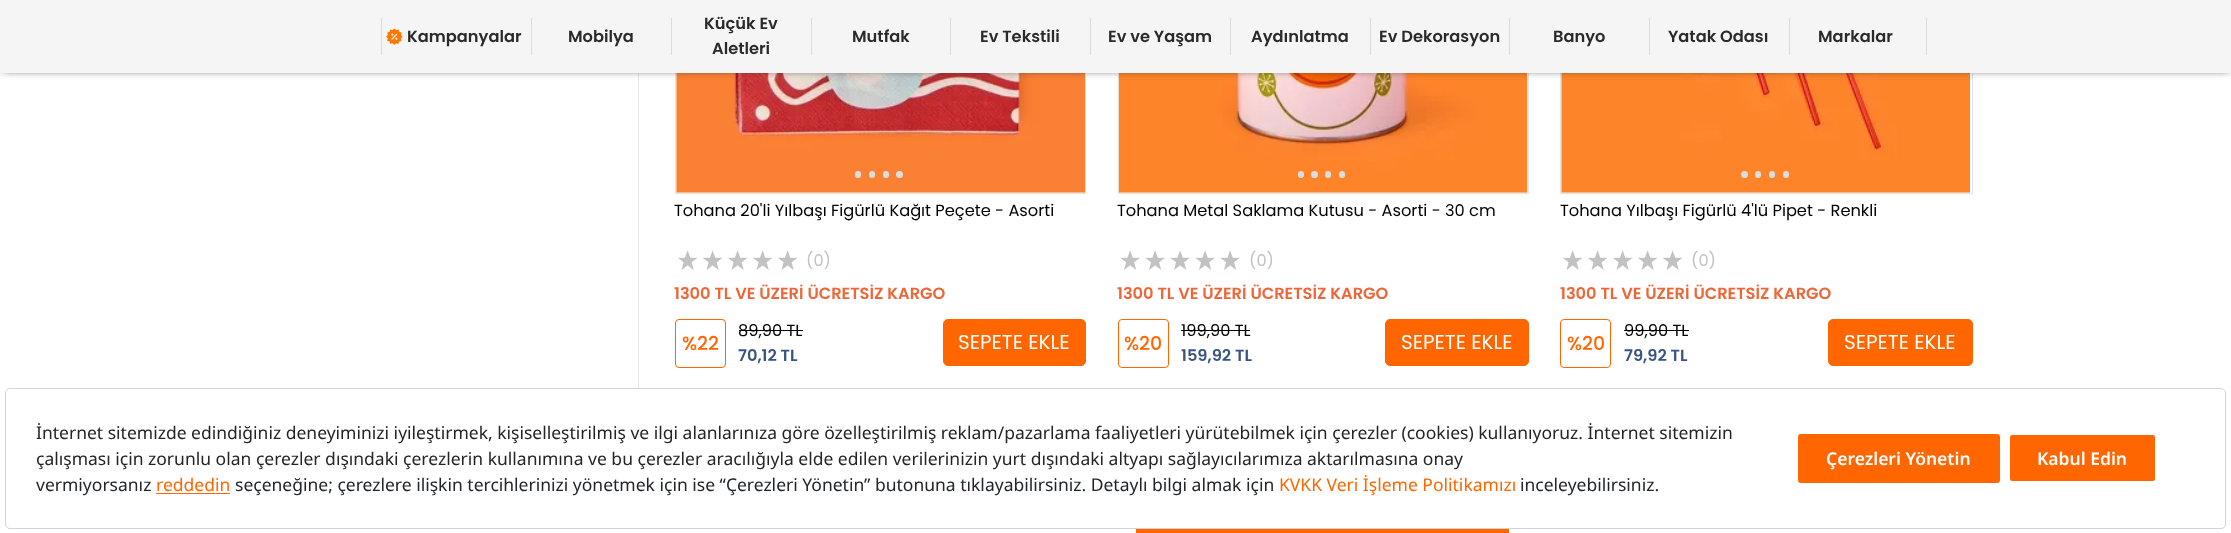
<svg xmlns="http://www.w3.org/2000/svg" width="2231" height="533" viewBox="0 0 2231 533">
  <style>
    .t1 { font: 600 16.25px Poppins; fill: #2a2a2a; }
    .t2 { font: 16.25px Poppins; fill: #000; }
    .t3 { font: 16.25px Poppins; fill: #c2c2c2; }
    .t4 { font: 600 16.25px Poppins; fill: #ef6537; }
    .t5 { font: 500 19px Poppins; fill: #f60; }
    .t6 { font: 600 16.25px Poppins; fill: #395482; }
    .t7 { font: 20px Poppins; fill: #fefefe; }
    .t8 { font: 17.5px Noto Sans; fill: #212529; }
    .t9 { font: 17.5px Noto Sans; fill: #f60; }
    .t10 { font: 600 17.5px Noto Sans; fill: #fefefe; }
  </style>
  <rect width="100%" height="100%" fill="#fff"/>
  <rect x="638" y="73" width="1" height="315" fill="#e4e4e4"/>
  <rect x="675.5" y="-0.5" width="410" height="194" fill="none" stroke="#e4e4e4"/>
  <image x="676" y="73" width="409" height="120" href="images/2.png"/>
  <rect x="1118.5" y="-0.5" width="410" height="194" fill="none" stroke="#e4e4e4"/>
  <image x="1118" y="73" width="410" height="120" href="images/4.png"/>
  <rect x="1560.5" y="-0.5" width="412" height="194" fill="none" stroke="#e4e4e4"/>
  <image x="1561" y="73" width="409" height="120" href="images/6.png"/>
  <rect x="3" y="3" width="2226" height="67" fill="#333" filter="blur(4px)"/>
  <rect x="0" y="0" width="2231" height="73" fill="#f5f5f5"/>
  <rect x="381" y="18" width="1" height="37" fill="#dcdcdc"/>
  <image x="386" y="28" width="17" height="17" href="images/1.png"/>
  <text x="407" y="42" class="t1">Kampanyalar</text>
  <rect x="531" y="18" width="1" height="37" fill="#dcdcdc"/>
  <text x="568" y="42" class="t1">Mobilya</text>
  <rect x="671" y="18" width="1" height="37" fill="#dcdcdc"/>
  <text x="704" y="29" class="t1">Küçük Ev</text>
  <text x="712" y="54" class="t1">Aletleri</text>
  <rect x="811" y="18" width="1" height="37" fill="#dcdcdc"/>
  <text x="852" y="42" class="t1">Mutfak</text>
  <rect x="950" y="18" width="1" height="37" fill="#dcdcdc"/>
  <text x="980" y="42" class="t1">Ev Tekstili</text>
  <rect x="1090" y="18" width="1" height="37" fill="#dcdcdc"/>
  <text x="1108" y="42" class="t1">Ev ve Yaşam</text>
  <rect x="1230" y="18" width="1" height="37" fill="#dcdcdc"/>
  <text x="1251" y="42" class="t1">Aydınlatma</text>
  <rect x="1370" y="18" width="1" height="37" fill="#dcdcdc"/>
  <text x="1379" y="42" class="t1">Ev Dekorasyon</text>
  <rect x="1509" y="18" width="1" height="37" fill="#dcdcdc"/>
  <text x="1553" y="42" class="t1">Banyo</text>
  <rect x="1649" y="18" width="1" height="37" fill="#dcdcdc"/>
  <text x="1668" y="42" class="t1">Yatak Odası</text>
  <rect x="1789" y="18" width="1" height="37" fill="#dcdcdc"/>
  <text x="1818" y="42" class="t1">Markalar</text>
  <rect x="1926" y="18" width="1" height="37" fill="#dcdcdc"/>
  <rect x="855" y="171" width="6" height="7" rx="3" fill="#ddd"/>
  <rect x="869" y="171" width="6" height="7" rx="3" fill="#ddd"/>
  <rect x="883" y="171" width="6" height="7" rx="3" fill="#ddd"/>
  <circle cx="899.5" cy="174.5" r="3.5" fill="#ddd"/>
  <text x="674" y="216" class="t2">Tohana 20'li Yılbaşı Figürlü Kağıt Peçete - Asorti</text>
  <image x="678" y="250" width="20" height="20" href="images/3.png"/>
  <image x="703" y="250" width="20" height="20" href="images/3.png"/>
  <image x="728" y="250" width="20" height="20" href="images/3.png"/>
  <image x="753" y="250" width="20" height="20" href="images/3.png"/>
  <image x="778" y="250" width="20" height="20" href="images/3.png"/>
  <text x="806" y="266" class="t3">(0)</text>
  <text x="674" y="299" class="t4">1300 TL VE ÜZERİ ÜCRETSİZ KARGO</text>
  <rect x="675.5" y="319.5" width="50" height="48" rx="3.5" fill="none" stroke="#f60"/>
  <text x="682" y="350" class="t5">%22</text>
  <text x="738" y="336" class="t2">89,90 TL</text>
  <rect x="739" y="330" width="64" height="1" fill="#000"/>
  <text x="738" y="361" class="t6">70,12 TL</text>
  <rect x="943.5" y="319.5" width="142" height="46" rx="4.5" fill="#f60" stroke="#f60"/>
  <text x="958" y="349" class="t7">SEPETE EKLE</text>
  <rect x="1298" y="171" width="6" height="7" rx="3" fill="#ddd"/>
  <circle cx="1314.5" cy="174.5" r="3.5" fill="#ddd"/>
  <rect x="1325" y="171" width="6" height="7" rx="3" fill="#ddd"/>
  <rect x="1339" y="171" width="6" height="7" rx="3" fill="#ddd"/>
  <text x="1117" y="216" class="t2">Tohana Metal Saklama Kutusu - Asorti - 30 cm</text>
  <image x="1120" y="250" width="20" height="20" href="images/5.png"/>
  <image x="1145" y="250" width="20" height="20" href="images/5.png"/>
  <image x="1170" y="250" width="20" height="20" href="images/5.png"/>
  <image x="1195" y="250" width="20" height="20" href="images/5.png"/>
  <image x="1220" y="250" width="20" height="20" href="images/5.png"/>
  <text x="1249" y="266" class="t3">(0)</text>
  <text x="1117" y="299" class="t4">1300 TL VE ÜZERİ ÜCRETSİZ KARGO</text>
  <rect x="1118.5" y="319.5" width="50" height="48" rx="3.5" fill="none" stroke="#f60"/>
  <text x="1124" y="350" class="t5">%20</text>
  <text x="1181" y="336" class="t2">199,90 TL</text>
  <rect x="1181" y="330" width="69" height="1" fill="#000"/>
  <text x="1181" y="361" class="t6">159,92 TL</text>
  <rect x="1385.5" y="319.5" width="143" height="46" rx="4.5" fill="#f60" stroke="#f60"/>
  <text x="1401" y="349" class="t7">SEPETE EKLE</text>
  <circle cx="1744.5" cy="174.5" r="3.5" fill="#ddd"/>
  <rect x="1755" y="171" width="6" height="7" rx="3" fill="#ddd"/>
  <rect x="1769" y="171" width="6" height="7" rx="3" fill="#ddd"/>
  <rect x="1783" y="171" width="6" height="7" rx="3" fill="#ddd"/>
  <text x="1560" y="216" class="t2">Tohana Yılbaşı Figürlü 4'lü Pipet - Renkli</text>
  <image x="1563" y="250" width="20" height="20" href="images/3.png"/>
  <image x="1588" y="250" width="20" height="20" href="images/3.png"/>
  <image x="1613" y="250" width="20" height="20" href="images/3.png"/>
  <image x="1638" y="250" width="20" height="20" href="images/3.png"/>
  <image x="1663" y="250" width="20" height="20" href="images/3.png"/>
  <text x="1691" y="266" class="t3">(0)</text>
  <text x="1560" y="299" class="t4">1300 TL VE ÜZERİ ÜCRETSİZ KARGO</text>
  <rect x="1560.5" y="319.5" width="50" height="48" rx="3.5" fill="none" stroke="#f60"/>
  <text x="1567" y="350" class="t5">%20</text>
  <text x="1624" y="336" class="t2">99,90 TL</text>
  <rect x="1624" y="330" width="65" height="1" fill="#000"/>
  <text x="1624" y="361" class="t6">79,92 TL</text>
  <rect x="1828.5" y="319.5" width="144" height="46" rx="4.5" fill="#f60" stroke="#f60"/>
  <text x="1844" y="349" class="t7">SEPETE EKLE</text>
  <rect x="1136" y="529" width="373" height="4" fill="#f60"/>
  <rect x="5.5" y="388.5" width="2220" height="140" rx="4.5" fill="none" stroke="#d1d5db"/>
  <text x="36" y="439" class="t8">İnternet sitemizde edindiğiniz deneyiminizi iyileştirmek, kişiselleştirilmiş ve ilgi alanlarınıza göre özelleştirilmiş reklam/pazarlama faaliyetleri yürütebilmek için çerezler (cookies) kullanıyoruz. İnternet sitemizin</text>
  <text x="36" y="465" class="t8">çalışması için zorunlu olan çerezler dışındaki çerezlerin kullanımına ve bu çerezler aracılığıyla elde edilen verilerinizin yurt dışındaki altyapı sağlayıcılarımıza aktarılmasına onay</text>
  <text x="36" y="491" class="t8">vermiyorsanız</text>
  <text x="156" y="491" class="t9">reddedin</text>
  <rect x="156" y="493" width="74" height="1" fill="#f60"/>
  <text x="235" y="491" class="t8">seçeneğine; çerezlere ilişkin tercihlerinizi yönetmek için ise “Çerezleri Yönetin” butonuna tıklayabilirsiniz. Detaylı bilgi almak için</text>
  <text x="1279" y="491" class="t9">KVKK Veri İşleme Politikamızı</text>
  <text x="1520" y="491" class="t8">inceleyebilirsiniz.</text>
  <rect x="1798.5" y="434.5" width="201" height="48" rx="2" fill="#f60" stroke="#f60"/>
  <text x="1826" y="465" class="t10">Çerezleri Yönetin</text>
  <rect x="2010" y="435" width="145" height="46" rx="2.5" fill="#f60"/>
  <text x="2037" y="465" class="t10">Kabul Edin</text>
</svg>
